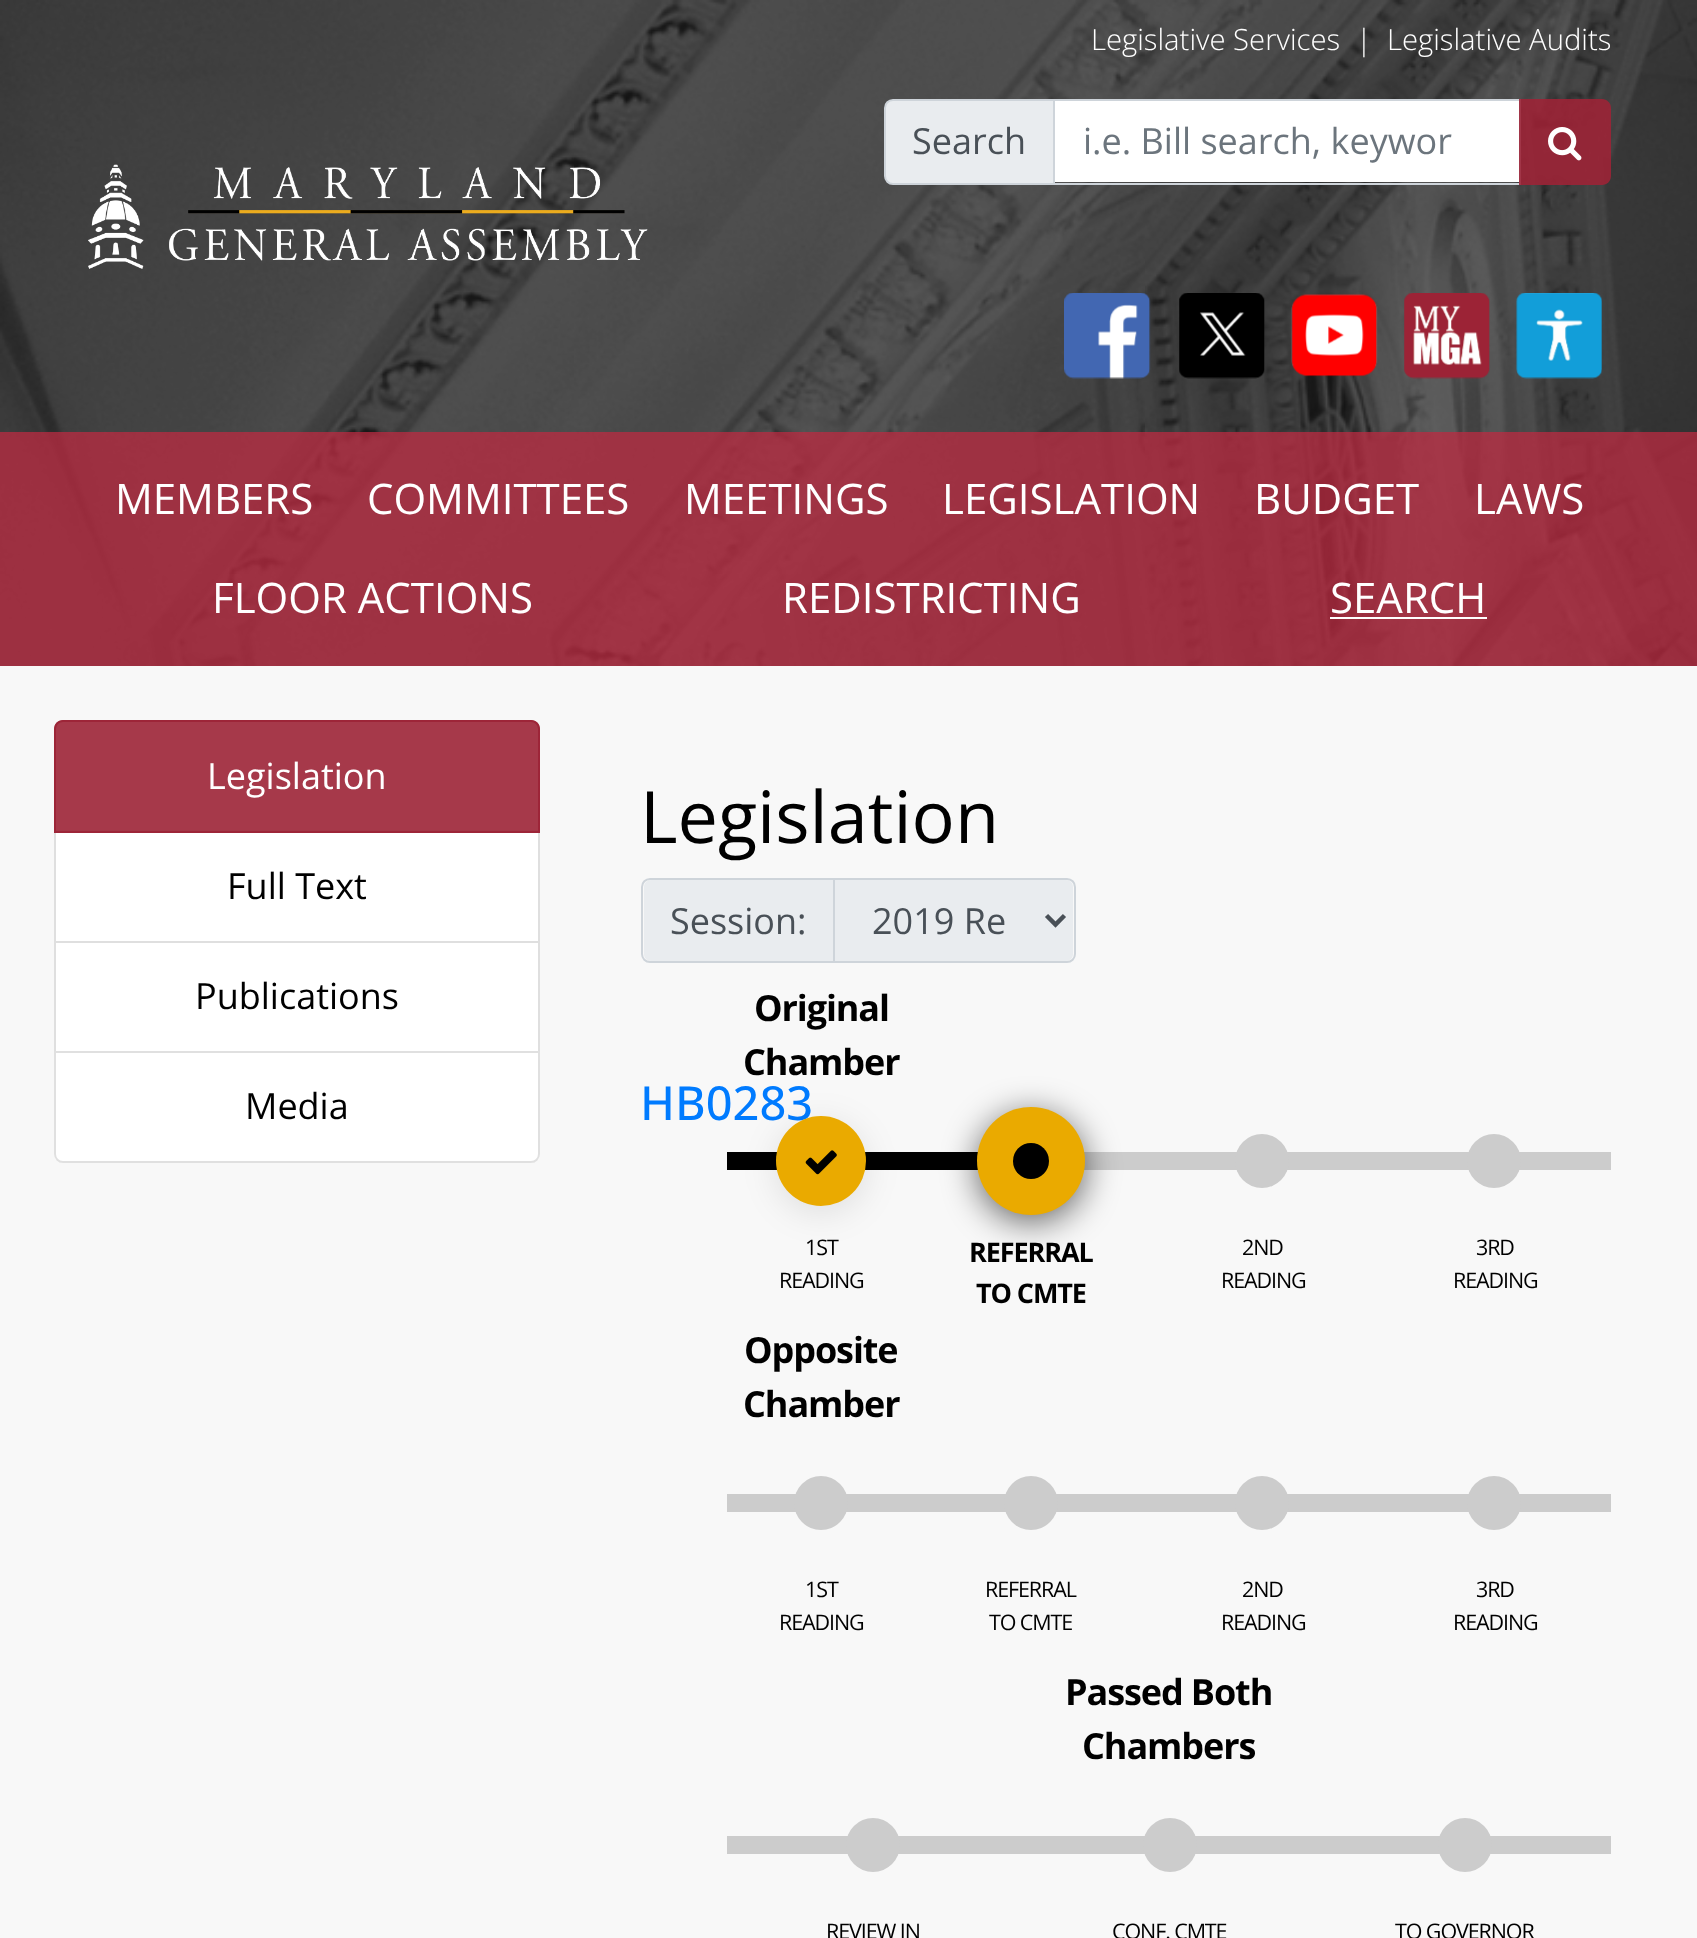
<svg xmlns="http://www.w3.org/2000/svg" width="1697" height="1938" viewBox="0 0 1697 1938">
  <style>
    .t1 { font: 300 29.25px Open Sans; fill: #fff; }
    .t2 { font: 36px Open Sans; fill: #495057; }
    .t3 { font: 36px Open Sans; fill: #6c757d; }
    .t4 { font: 42px Open Sans; fill: #fff; }
    .t5 { font: 36px Open Sans; fill: #fff; }
    .t6 { font: 36px Open Sans; fill: #000; }
    .t7 { font: 72px Open Sans; fill: #000; }
    .t8 { font: 500 47px Open Sans; fill: #007bff; }
    .t9 { font: bold 36px Open Sans; letter-spacing: -1.1px; fill: #000; }
    .t10 { font: 21.5px Open Sans; letter-spacing: -1.1px; fill: #000; }
    .t11 { font: bold 27px Open Sans; letter-spacing: -1.1px; fill: #000; }
  </style>
  <rect width="100%" height="100%" fill="#f8f8f8"/>
  <image x="0" y="0" width="1697" height="666" href="images/1.png"/>
  <rect x="0" y="0" width="1697" height="432" fill="#00000099"/>
  <text x="1091" y="50" class="t1">Legislative Services</text>
  <text x="1356" y="50" class="t1">|</text>
  <text x="1387" y="50" class="t1">Legislative Audits</text>
  <path d="M893 100H1054V184H893C888.5 184 885 180.5 885 176V108C885 103.5 888.5 100 893 100Z" fill="#e9ecef" stroke="#ced4da" stroke-width="2"/>
  <text x="912" y="154" class="t2">Search</text>
  <rect x="1055" y="101" width="464" height="81" fill="#fff"/>
  <rect x="1054" y="100" width="466" height="84" fill="none" stroke="#ced4da" stroke-width="2"/>
  <text x="1083" y="154" class="t3">i.e. Bill search, keywor</text>
  <path d="M1519 99H1602C1607 99 1611 103 1611 108V176C1611 181 1607 185 1602 185H1519Z" fill="#9c2436e6"/>
  <image x="1548" y="127" width="34" height="34" href="images/2.png"/>
  <image x="1064" y="293" width="87" height="86" href="images/3.png"/>
  <image x="1179" y="293" width="86" height="86" href="images/4.png"/>
  <image x="1291" y="294" width="87" height="83" href="images/5.png"/>
  <image x="1404" y="293" width="86" height="86" href="images/6.png"/>
  <image x="1516" y="293" width="86" height="86" href="images/7.png"/>
  <image x="88" y="164" width="560" height="105" href="images/8.png"/>
  <rect x="0" y="432" width="1697" height="234" fill="#9c2436e6"/>
  <text x="115" y="514" class="t4">MEMBERS</text>
  <text x="367" y="514" class="t4">COMMITTEES</text>
  <text x="684" y="514" class="t4">MEETINGS</text>
  <text x="942" y="514" class="t4">LEGISLATION</text>
  <text x="1254" y="514" class="t4">BUDGET</text>
  <text x="1474" y="514" class="t4">LAWS</text>
  <text x="212" y="613" class="t4">FLOOR ACTIONS</text>
  <text x="782" y="613" class="t4">REDISTRICTING</text>
  <text x="1330" y="613" class="t4">SEARCH</text>
  <rect x="1330" y="617" width="157" height="2" fill="#fff"/>
  <rect x="55" y="831" width="484" height="111" fill="#fff" stroke="#dfdfdf" stroke-width="2"/>
  <path d="M63 720H531C536 720 540 724 540 729V833H54V729C54 724 58 720 63 720Z" fill="#9c2436e6"/>
  <path d="M63 721H531C535.5 721 539 724.5 539 729V832H55V729C55 724.5 58.5 721 63 721Z" fill="none" stroke="#9c2436e6" stroke-width="2"/>
  <text x="207" y="789" class="t5">Legislation</text>
  <text x="227" y="899" class="t6">Full Text</text>
  <rect x="55" y="942" width="484" height="110" fill="#fff" stroke="#dfdfdf" stroke-width="2"/>
  <text x="195" y="1009" class="t6">Publications</text>
  <path d="M54 1051H540V1154C540 1159 536 1163 531 1163H63C58 1163 54 1159 54 1154Z" fill="#fff"/>
  <path d="M55 1052H539V1154C539 1158.5 535.5 1162 531 1162H63C58.5 1162 55 1158.5 55 1154Z" fill="none" stroke="#0000001f" stroke-width="2"/>
  <text x="245" y="1119" class="t6">Media</text>
  <text x="640" y="843" class="t7">Legislation</text>
  <path d="M651 880H833V961H651C647 961 644 958 644 954V887C644 883 647 880 651 880Z" fill="#e9ecef"/>
  <path d="M650 879H834V962H650C645.5 962 642 958.5 642 954V887C642 882.5 645.5 879 650 879Z" fill="none" stroke="#ced4da" stroke-width="2"/>
  <text x="670" y="934" class="t2">Session:</text>
  <path d="M835 880H1066C1070 880 1073 883 1073 887V954C1073 958 1070 961 1066 961H835Z" fill="#e9ecef"/>
  <path d="M834 879H1067C1071.5 879 1075 882.5 1075 887V954C1075 958.5 1071.5 962 1067 962H834Z" fill="none" stroke="#ced4da" stroke-width="2"/>
  <path d="M1046.5 915.5L1055.5 924.5L1064.5 915.5" fill="none" stroke="#495057" stroke-width="4.5"/>
  <text x="872" y="934" class="t2">2019 Re</text>
  <text x="640" y="1120" class="t8">HB0283</text>
  <text x="754" y="1021" class="t9">Original</text>
  <text x="743" y="1075" class="t9">Chamber</text>
  <rect x="727" y="1152" width="189" height="18" fill="#000"/>
  <rect x="776" y="1123" width="90" height="90" rx="45" fill="#0000001a" filter="blur(17px)"/>
  <circle cx="821" cy="1161" r="45" fill="#eaaa00"/>
  <image x="805" y="1150" width="32" height="25" href="images/9.png"/>
  <text x="805" y="1255" class="t10">1ST</text>
  <text x="779" y="1288" class="t10">READING</text>
  <rect x="916" y="1152" width="62" height="18" fill="#000"/>
  <rect x="1084" y="1152" width="527" height="18" fill="#ccc"/>
  <rect x="977" y="1114" width="108" height="108" rx="54" fill="#00000099" filter="blur(17px)"/>
  <circle cx="1031" cy="1161" r="54" fill="#eaaa00"/>
  <circle cx="1031" cy="1161" r="18" fill="#000"/>
  <text x="969" y="1262" class="t11">REFERRAL</text>
  <text x="976" y="1303" class="t11">TO CMTE</text>
  <circle cx="1262" cy="1161" r="27" fill="#ccc"/>
  <text x="1242" y="1255" class="t10">2ND</text>
  <text x="1221" y="1288" class="t10">READING</text>
  <circle cx="1494" cy="1161" r="27" fill="#ccc"/>
  <text x="1476" y="1255" class="t10">3RD</text>
  <text x="1453" y="1288" class="t10">READING</text>
  <text x="744" y="1363" class="t9">Opposite</text>
  <text x="743" y="1417" class="t9">Chamber</text>
  <rect x="727" y="1494" width="884" height="18" fill="#ccc"/>
  <circle cx="821" cy="1503" r="27" fill="#ccc"/>
  <text x="805" y="1597" class="t10">1ST</text>
  <text x="779" y="1630" class="t10">READING</text>
  <circle cx="1031" cy="1503" r="27" fill="#ccc"/>
  <text x="985" y="1597" class="t10">REFERRAL</text>
  <text x="989" y="1630" class="t10">TO CMTE</text>
  <circle cx="1262" cy="1503" r="27" fill="#ccc"/>
  <text x="1242" y="1597" class="t10">2ND</text>
  <text x="1221" y="1630" class="t10">READING</text>
  <circle cx="1494" cy="1503" r="27" fill="#ccc"/>
  <text x="1476" y="1597" class="t10">3RD</text>
  <text x="1453" y="1630" class="t10">READING</text>
  <rect x="727" y="1836" width="884" height="18" fill="#ccc"/>
  <circle cx="873" cy="1845" r="27" fill="#ccc"/>
  <text x="826" y="1939" class="t10">REVIEW IN</text>
  <text x="1065" y="1705" class="t9">Passed Both</text>
  <text x="1082" y="1759" class="t9">Chambers</text>
  <circle cx="1170" cy="1845" r="27" fill="#ccc"/>
  <text x="1112" y="1939" class="t10">CONF. CMTE</text>
  <circle cx="1465" cy="1845" r="27" fill="#ccc"/>
  <text x="1395" y="1939" class="t10">TO GOVERNOR</text>
</svg>
